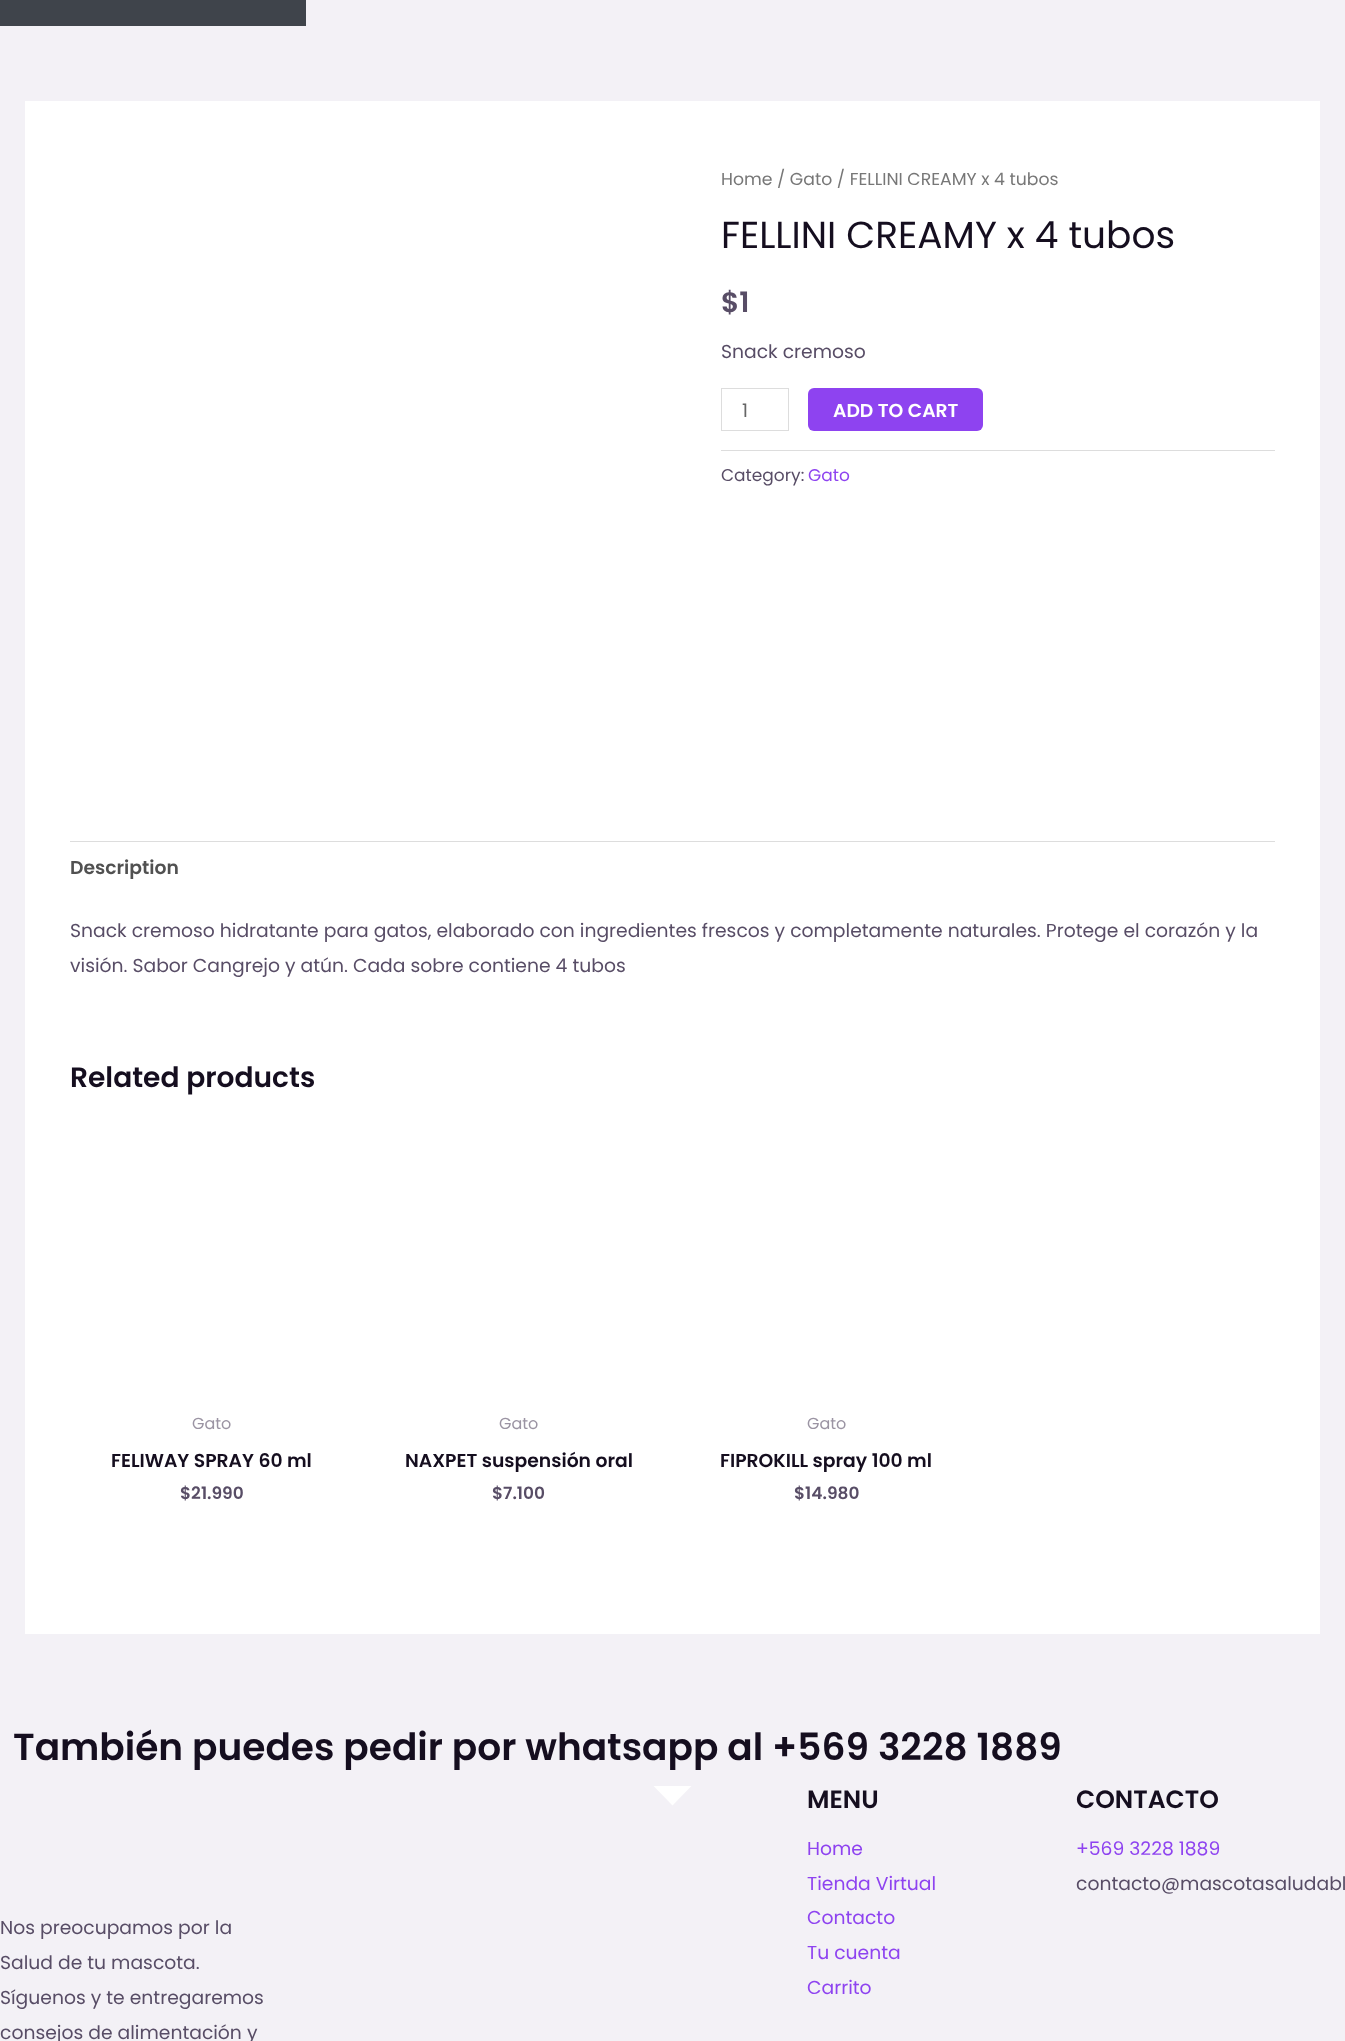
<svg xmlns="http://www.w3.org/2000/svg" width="1345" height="2041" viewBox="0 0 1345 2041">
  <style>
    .t1 { font: 17.25px Poppins; fill: #777; }
    .t2 { font: 37.5px Poppins; fill: #150e1f; }
    .t3 { font: 600 28.1px Poppins; fill: #584d66; }
    .t4 { font: 18.75px Poppins; fill: #584d66; }
    .t5 { font: 18.75px Poppins; fill: #666; }
    .t6 { font: 600 18.75px Poppins; fill: #fff; }
    .t7 { font: 17px Poppins; fill: #584d66; }
    .t8 { font: 17px Poppins; fill: #8e43f0; }
    .t9 { font: 600 18.75px Poppins; fill: #515151; }
    .t10 { font: 600 28.1px Poppins; fill: #150e1f; }
    .t11 { font: 16px Poppins; fill: #9b94a3; }
    .t12 { font: 600 18.75px Poppins; fill: #150e1f; }
    .t13 { font: 600 17px Poppins; fill: #584d66; }
    .t14 { font: 600 37.5px Poppins; fill: #150e1f; }
    .t15 { font: 600 25px Poppins; fill: #150e1f; }
    .t16 { font: 18.75px Poppins; fill: #8e43f0; }
  </style>
  <rect width="100%" height="100%" fill="#f3f1f6"/>
  <rect x="0" y="0" width="306" height="26" fill="#3f444b"/>
  <rect x="25" y="101" width="1295" height="1533" fill="#fff"/>
  <text x="721" y="185" class="t1">Home / Gato / FELLINI CREAMY x 4 tubos</text>
  <text x="721" y="248" class="t2">FELLINI CREAMY x 4 tubos</text>
  <text x="721" y="312" class="t3">$1</text>
  <text x="721" y="358" class="t4">Snack cremoso</text>
  <rect x="721.5" y="388.5" width="67" height="42" fill="none" stroke="#ddd"/>
  <text x="742" y="417" class="t5">1</text>
  <rect x="808" y="388" width="175" height="43" rx="6" fill="#8e43f0"/>
  <text x="833" y="417" class="t6">ADD TO CART</text>
  <rect x="721" y="450" width="554" height="1" fill="#ddd"/>
  <text x="721" y="481" class="t7">Category:</text>
  <text x="808" y="481" class="t8">Gato</text>
  <rect x="70" y="841" width="1205" height="1" fill="#ddd"/>
  <text x="70" y="874" class="t9">Description</text>
  <text x="70" y="937" class="t4">Snack cremoso hidratante para gatos, elaborado con ingredientes frescos y completamente naturales. Protege el corazón y la</text>
  <text x="70" y="972" class="t4">visión. Sabor Cangrejo y atún. Cada sobre contiene 4 tubos</text>
  <text x="70" y="1087" class="t10">Related products</text>
  <text x="192" y="1429" class="t11">Gato</text>
  <text x="111" y="1467" class="t12">FELIWAY SPRAY 60 ml</text>
  <text x="180" y="1499" class="t13">$21.990</text>
  <text x="499" y="1429" class="t11">Gato</text>
  <text x="405" y="1467" class="t12">NAXPET suspensión oral</text>
  <text x="492" y="1499" class="t13">$7.100</text>
  <text x="807" y="1429" class="t11">Gato</text>
  <text x="720" y="1467" class="t12">FIPROKILL spray 100 ml</text>
  <text x="794" y="1499" class="t13">$14.980</text>
  <text x="13" y="1760" class="t14">También puedes pedir por whatsapp al +569 3228 1889</text>
  <path d="M672.5 1805.5L653.5 1786H691.5Z" fill="#fff"/>
  <text x="807" y="1808" class="t15">MENU</text>
  <text x="807" y="1855" class="t16">Home</text>
  <text x="807" y="1890" class="t16">Tienda Virtual</text>
  <text x="807" y="1924" class="t16">Contacto</text>
  <text x="807" y="1959" class="t16">Tu cuenta</text>
  <text x="807" y="1994" class="t16">Carrito</text>
  <text x="1076" y="1808" class="t15">CONTACTO</text>
  <text x="1076" y="1855" class="t16">+569 3228 1889</text>
  <text x="1076" y="1890" class="t4">contacto@mascotasaludabl</text>
  <text x="0" y="1934" class="t4">Nos preocupamos por la</text>
  <text x="0" y="1969" class="t4">Salud de tu mascota.</text>
  <text x="0" y="2004" class="t4">Síguenos y te entregaremos</text>
  <text x="0" y="2039" class="t4">consejos de alimentación y</text>
</svg>
